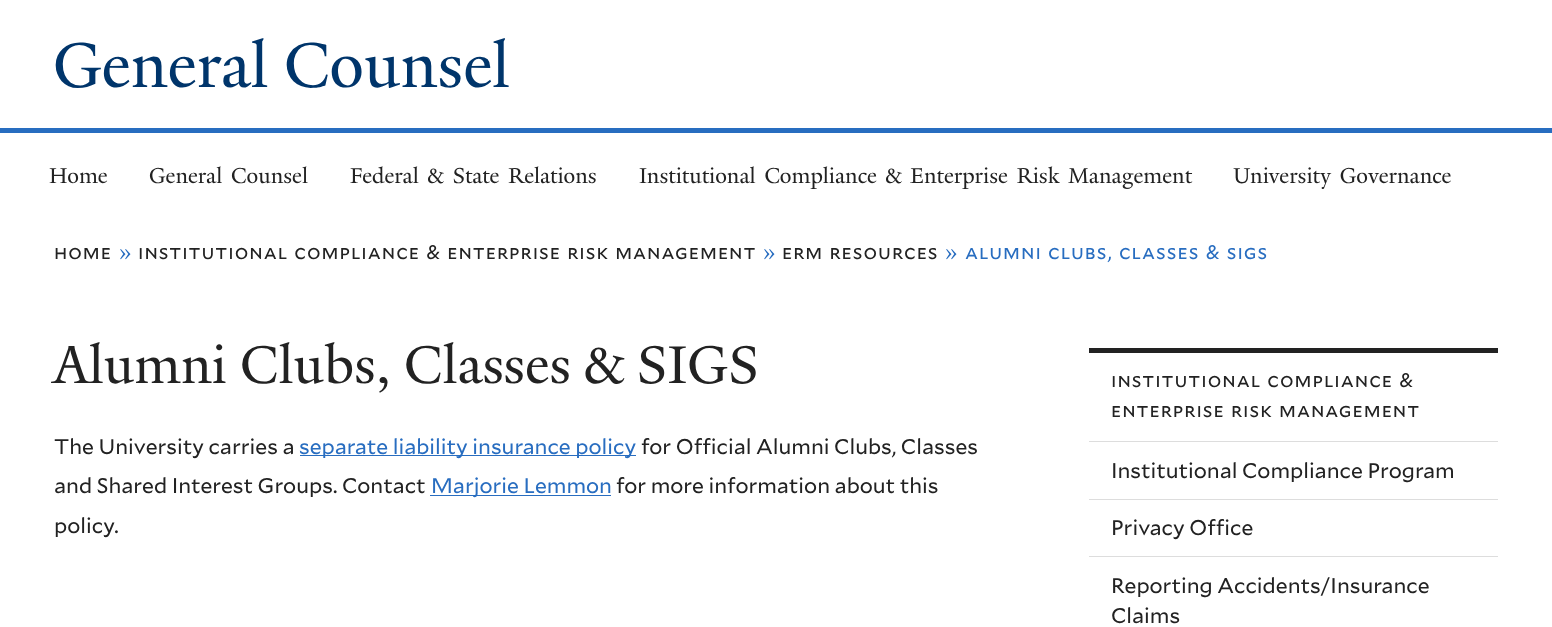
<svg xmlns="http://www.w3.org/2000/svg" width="1552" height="627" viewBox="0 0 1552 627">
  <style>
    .t1 { font: 68.75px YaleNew; fill: #00356b; }
    .t2 { font: 23.4px YaleNew; fill: #222; }
    .t3 { font: 19.65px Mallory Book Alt; letter-spacing: 0.98px; fill: #222; }
    .t4 { font: 19.65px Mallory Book; letter-spacing: 0.98px; fill: #286dc0; }
    .t5 { font: 19.65px Mallory Book Alt; letter-spacing: 0.98px; fill: #286dc0; }
    .t6 { font: 57.5px YaleNew; fill: #222; }
    .t7 { font: 21.25px Mallory Book; fill: #222; }
    .t8 { font: 21.25px Mallory Book; fill: #286dc0; }
  </style>
  <rect width="100%" height="100%" fill="#fff"/>
  <text x="53" y="87" class="t1">General Counsel</text>
  <rect x="0" y="128" width="1552" height="5" fill="#286dc0"/>
  <text x="49" y="183" class="t2">Home</text>
  <text x="149" y="183" word-spacing="3.5" class="t2">General Counsel</text>
  <text x="350" y="183" word-spacing="3.5" class="t2">Federal &amp; State Relations</text>
  <text x="639" y="183" word-spacing="3.5" class="t2">Institutional Compliance &amp; Enterprise Risk Management</text>
  <text x="1233" y="183" word-spacing="3.5" class="t2">University Governance</text>
  <text x="54" y="259" class="t3">home</text>
  <text x="119" y="259" class="t4">»</text>
  <text x="138" y="259" word-spacing="1" class="t3">institutional compliance &amp; enterprise risk management</text>
  <text x="763" y="259" class="t4">»</text>
  <text x="782" y="259" word-spacing="1" class="t3">erm resources</text>
  <text x="945" y="259" class="t4">»</text>
  <text x="965" y="259" word-spacing="1" class="t5">alumni clubs, classes &amp; sigs</text>
  <text x="53" y="383" class="t6">Alumni Clubs, Classes &amp; SIGS</text>
  <text x="54" y="454" class="t7">The University carries a</text>
  <rect x="300" y="455" width="336" height="1" fill="#286dc0"/>
  <text x="299" y="454" class="t8">separate liability insurance policy</text>
  <text x="641" y="454" class="t7">for Official Alumni Clubs, Classes</text>
  <text x="54" y="493" class="t7">and Shared Interest Groups. Contact</text>
  <rect x="430" y="495" width="181" height="1" fill="#286dc0"/>
  <text x="431" y="493" class="t8">Marjorie Lemmon</text>
  <text x="616" y="493" class="t7">for more information about this</text>
  <text x="54" y="533" class="t7">policy.</text>
  <rect x="1089" y="348" width="409" height="5" fill="#222"/>
  <text x="1111" y="387" word-spacing="1" class="t3">institutional compliance &amp;</text>
  <text x="1111" y="417" word-spacing="1" class="t3">enterprise risk management</text>
  <rect x="1089" y="441" width="409" height="1" fill="#ddd"/>
  <rect x="1089" y="499" width="409" height="1" fill="#ddd"/>
  <text x="1111" y="478" class="t7">Institutional Compliance Program</text>
  <rect x="1089" y="556" width="409" height="1" fill="#ddd"/>
  <text x="1111" y="535" class="t7">Privacy Office</text>
  <text x="1111" y="593" class="t7">Reporting Accidents/Insurance</text>
  <text x="1111" y="623" class="t7">Claims</text>
</svg>
